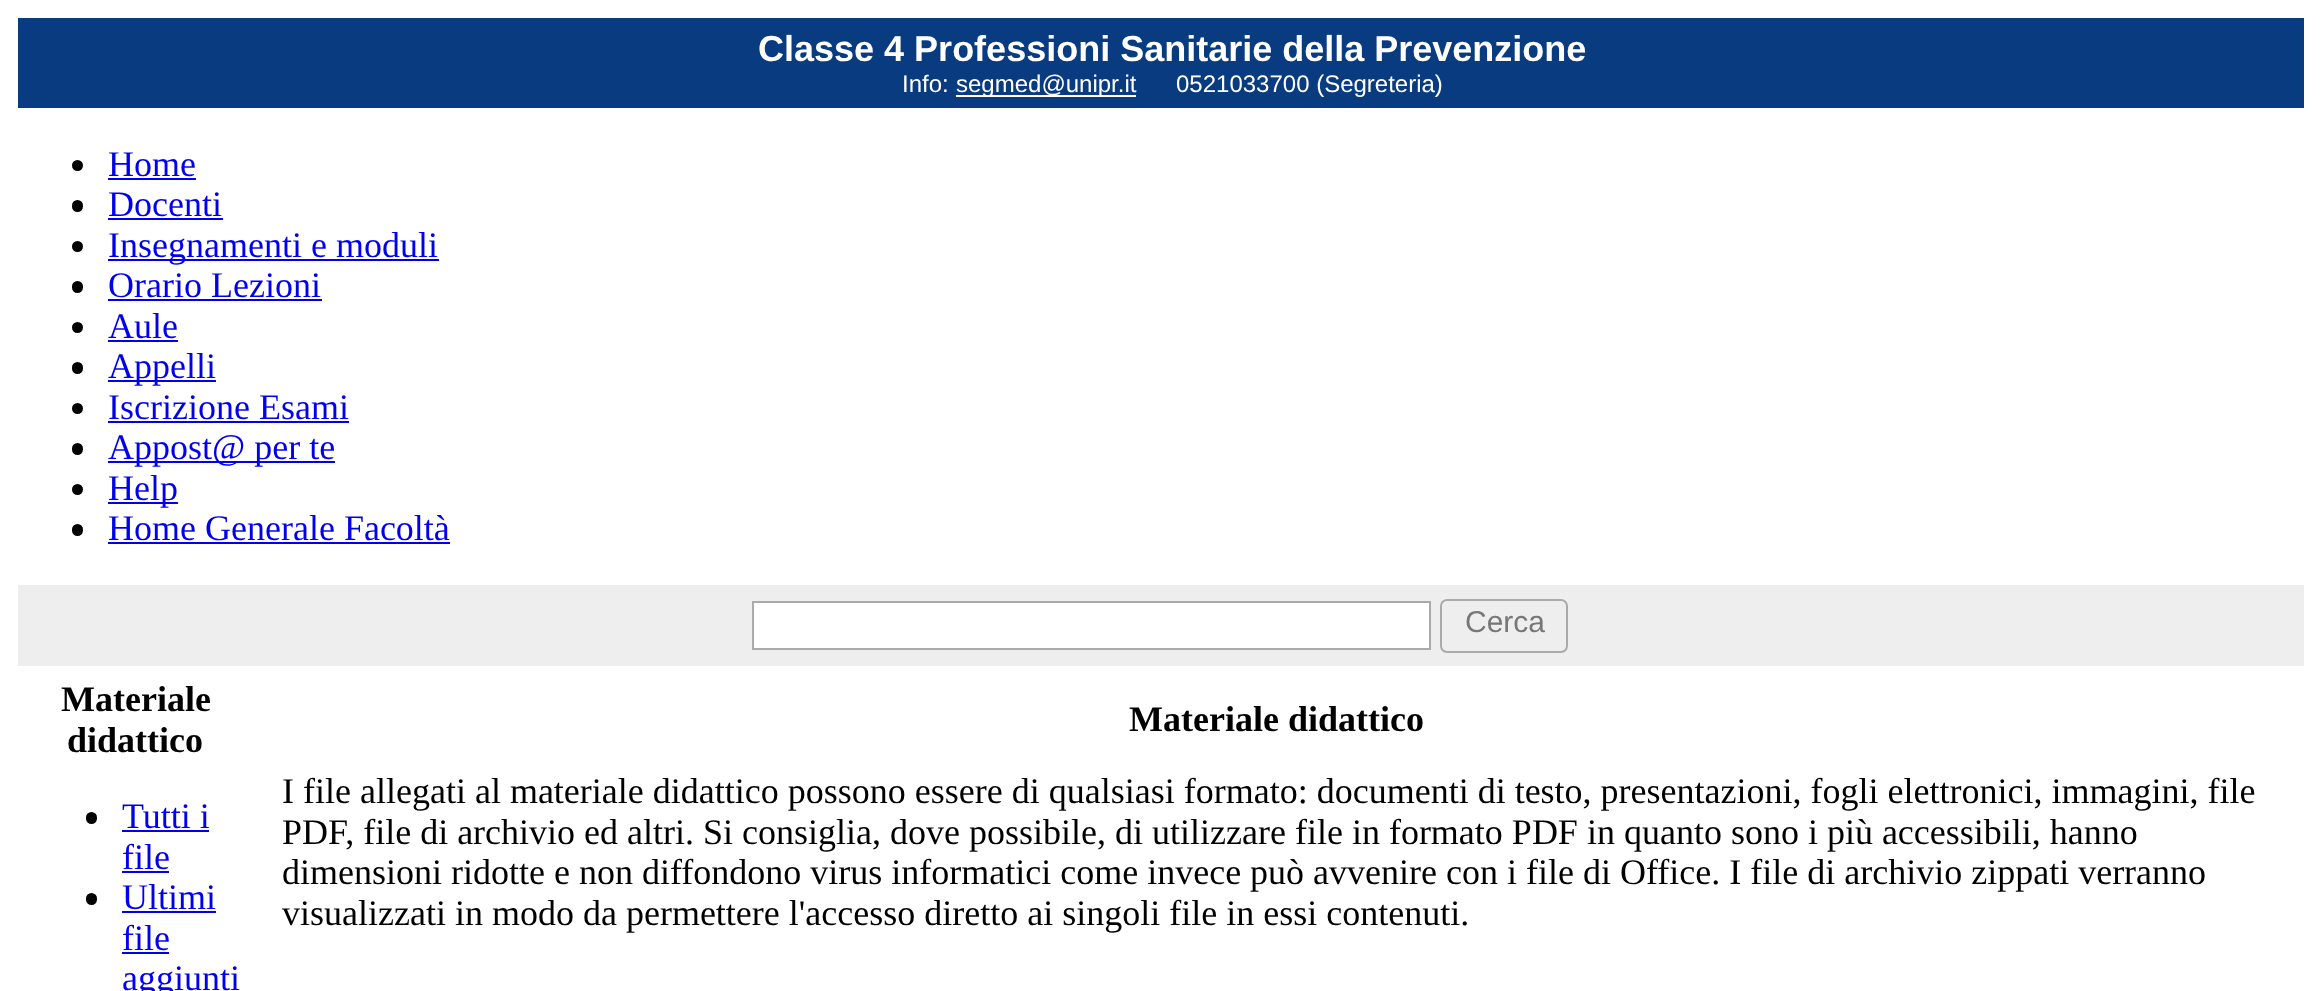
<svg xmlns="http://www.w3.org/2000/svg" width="2321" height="991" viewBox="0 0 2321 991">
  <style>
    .t1 { font: bold 36px Liberation Sans; fill: #fff; }
    .t2 { font: 24px Liberation Sans; fill: #fff; }
    .t3 { font: 36px Liberation Serif; fill: #00e; }
    .t4 { font: 30px Liberation Sans; fill: #777; }
    .t5 { font: bold 36px Liberation Serif; fill: #000; }
    .t6 { font: 36px Liberation Serif; fill: #000; }
  </style>
  <rect width="100%" height="100%" fill="#fff"/>
  <rect x="18" y="18" width="2286" height="90" fill="#093b81"/>
  <text x="758" y="61" class="t1">Classe 4 Professioni Sanitarie della Prevenzione</text>
  <text x="902" y="92" class="t2">Info:</text>
  <rect x="956" y="95" width="180" height="2" fill="#fff"/>
  <text x="956" y="92" class="t2">segmed@unipr.it</text>
  <text x="1176" y="92" class="t2">0521033700 (Segreteria)</text>
  <circle cx="77.5" cy="165.5" r="5.5" fill="#000"/>
  <text x="108" y="176" class="t3">Home</text>
  <rect x="108" y="178" width="88" height="2" fill="#00e"/>
  <rect x="72" y="200" width="11" height="12" rx="5.5" fill="#000"/>
  <text x="108" y="216" class="t3">Docenti</text>
  <rect x="108" y="218" width="115" height="2" fill="#00e"/>
  <circle cx="77.5" cy="246.5" r="5.5" fill="#000"/>
  <rect x="108" y="259" width="331" height="2" fill="#00e"/>
  <text x="108" y="257" class="t3">Insegnamenti e moduli</text>
  <rect x="72" y="281" width="11" height="12" rx="5.5" fill="#000"/>
  <text x="108" y="297" class="t3">Orario Lezioni</text>
  <rect x="108" y="299" width="214" height="2" fill="#00e"/>
  <circle cx="77.5" cy="327.5" r="5.5" fill="#000"/>
  <text x="108" y="338" class="t3">Aule</text>
  <rect x="108" y="340" width="70" height="2" fill="#00e"/>
  <rect x="72" y="362" width="11" height="12" rx="5.5" fill="#000"/>
  <rect x="108" y="380" width="108" height="2" fill="#00e"/>
  <text x="108" y="378" class="t3">Appelli</text>
  <circle cx="77.5" cy="408.5" r="5.5" fill="#000"/>
  <text x="108" y="419" class="t3">Iscrizione Esami</text>
  <rect x="108" y="421" width="241" height="2" fill="#00e"/>
  <rect x="72" y="443" width="11" height="12" rx="5.5" fill="#000"/>
  <rect x="108" y="461" width="227" height="2" fill="#00e"/>
  <text x="108" y="459" class="t3">Appost@ per te</text>
  <circle cx="77.5" cy="489.5" r="5.5" fill="#000"/>
  <rect x="108" y="502" width="70" height="2" fill="#00e"/>
  <text x="108" y="500" class="t3">Help</text>
  <rect x="72" y="524" width="11" height="12" rx="5.5" fill="#000"/>
  <text x="108" y="540" class="t3">Home Generale Facoltà</text>
  <rect x="108" y="542" width="342" height="2" fill="#00e"/>
  <rect x="18" y="585" width="2286" height="81" fill="#eee"/>
  <rect x="753" y="602" width="677" height="47" fill="#fff" stroke="#aaa" stroke-width="2"/>
  <rect x="1441" y="600" width="126" height="52" rx="6" fill="none" stroke="#aaa" stroke-width="2"/>
  <text x="1465" y="632" class="t4">Cerca</text>
  <text x="61" y="711" class="t5">Materiale</text>
  <text x="67" y="752" class="t5">didattico</text>
  <rect x="86" y="812" width="11" height="12" rx="5.5" fill="#000"/>
  <text x="122" y="828" class="t3">Tutti i</text>
  <rect x="122" y="830" width="87" height="2" fill="#00e"/>
  <text x="122" y="869" class="t3">file</text>
  <rect x="122" y="871" width="47" height="2" fill="#00e"/>
  <rect x="86" y="893" width="11" height="12" rx="5.5" fill="#000"/>
  <text x="122" y="909" class="t3">Ultimi</text>
  <rect x="122" y="911" width="94" height="2" fill="#00e"/>
  <text x="122" y="950" class="t3">file</text>
  <rect x="122" y="952" width="47" height="2" fill="#00e"/>
  <text x="122" y="990" class="t3">aggiunti</text>
  <text x="1129" y="731" class="t5">Materiale didattico</text>
  <text x="282" y="803" class="t6">I file allegati al materiale didattico possono essere di qualsiasi formato: documenti di testo, presentazioni, fogli elettronici, immagini, file</text>
  <text x="282" y="844" class="t6">PDF, file di archivio ed altri. Si consiglia, dove possibile, di utilizzare file in formato PDF in quanto sono i più accessibili, hanno</text>
  <text x="282" y="884" class="t6">dimensioni ridotte e non diffondono virus informatici come invece può avvenire con i file di Office. I file di archivio zippati verranno</text>
  <text x="282" y="925" class="t6">visualizzati in modo da permettere l'accesso diretto ai singoli file in essi contenuti.</text>
</svg>
